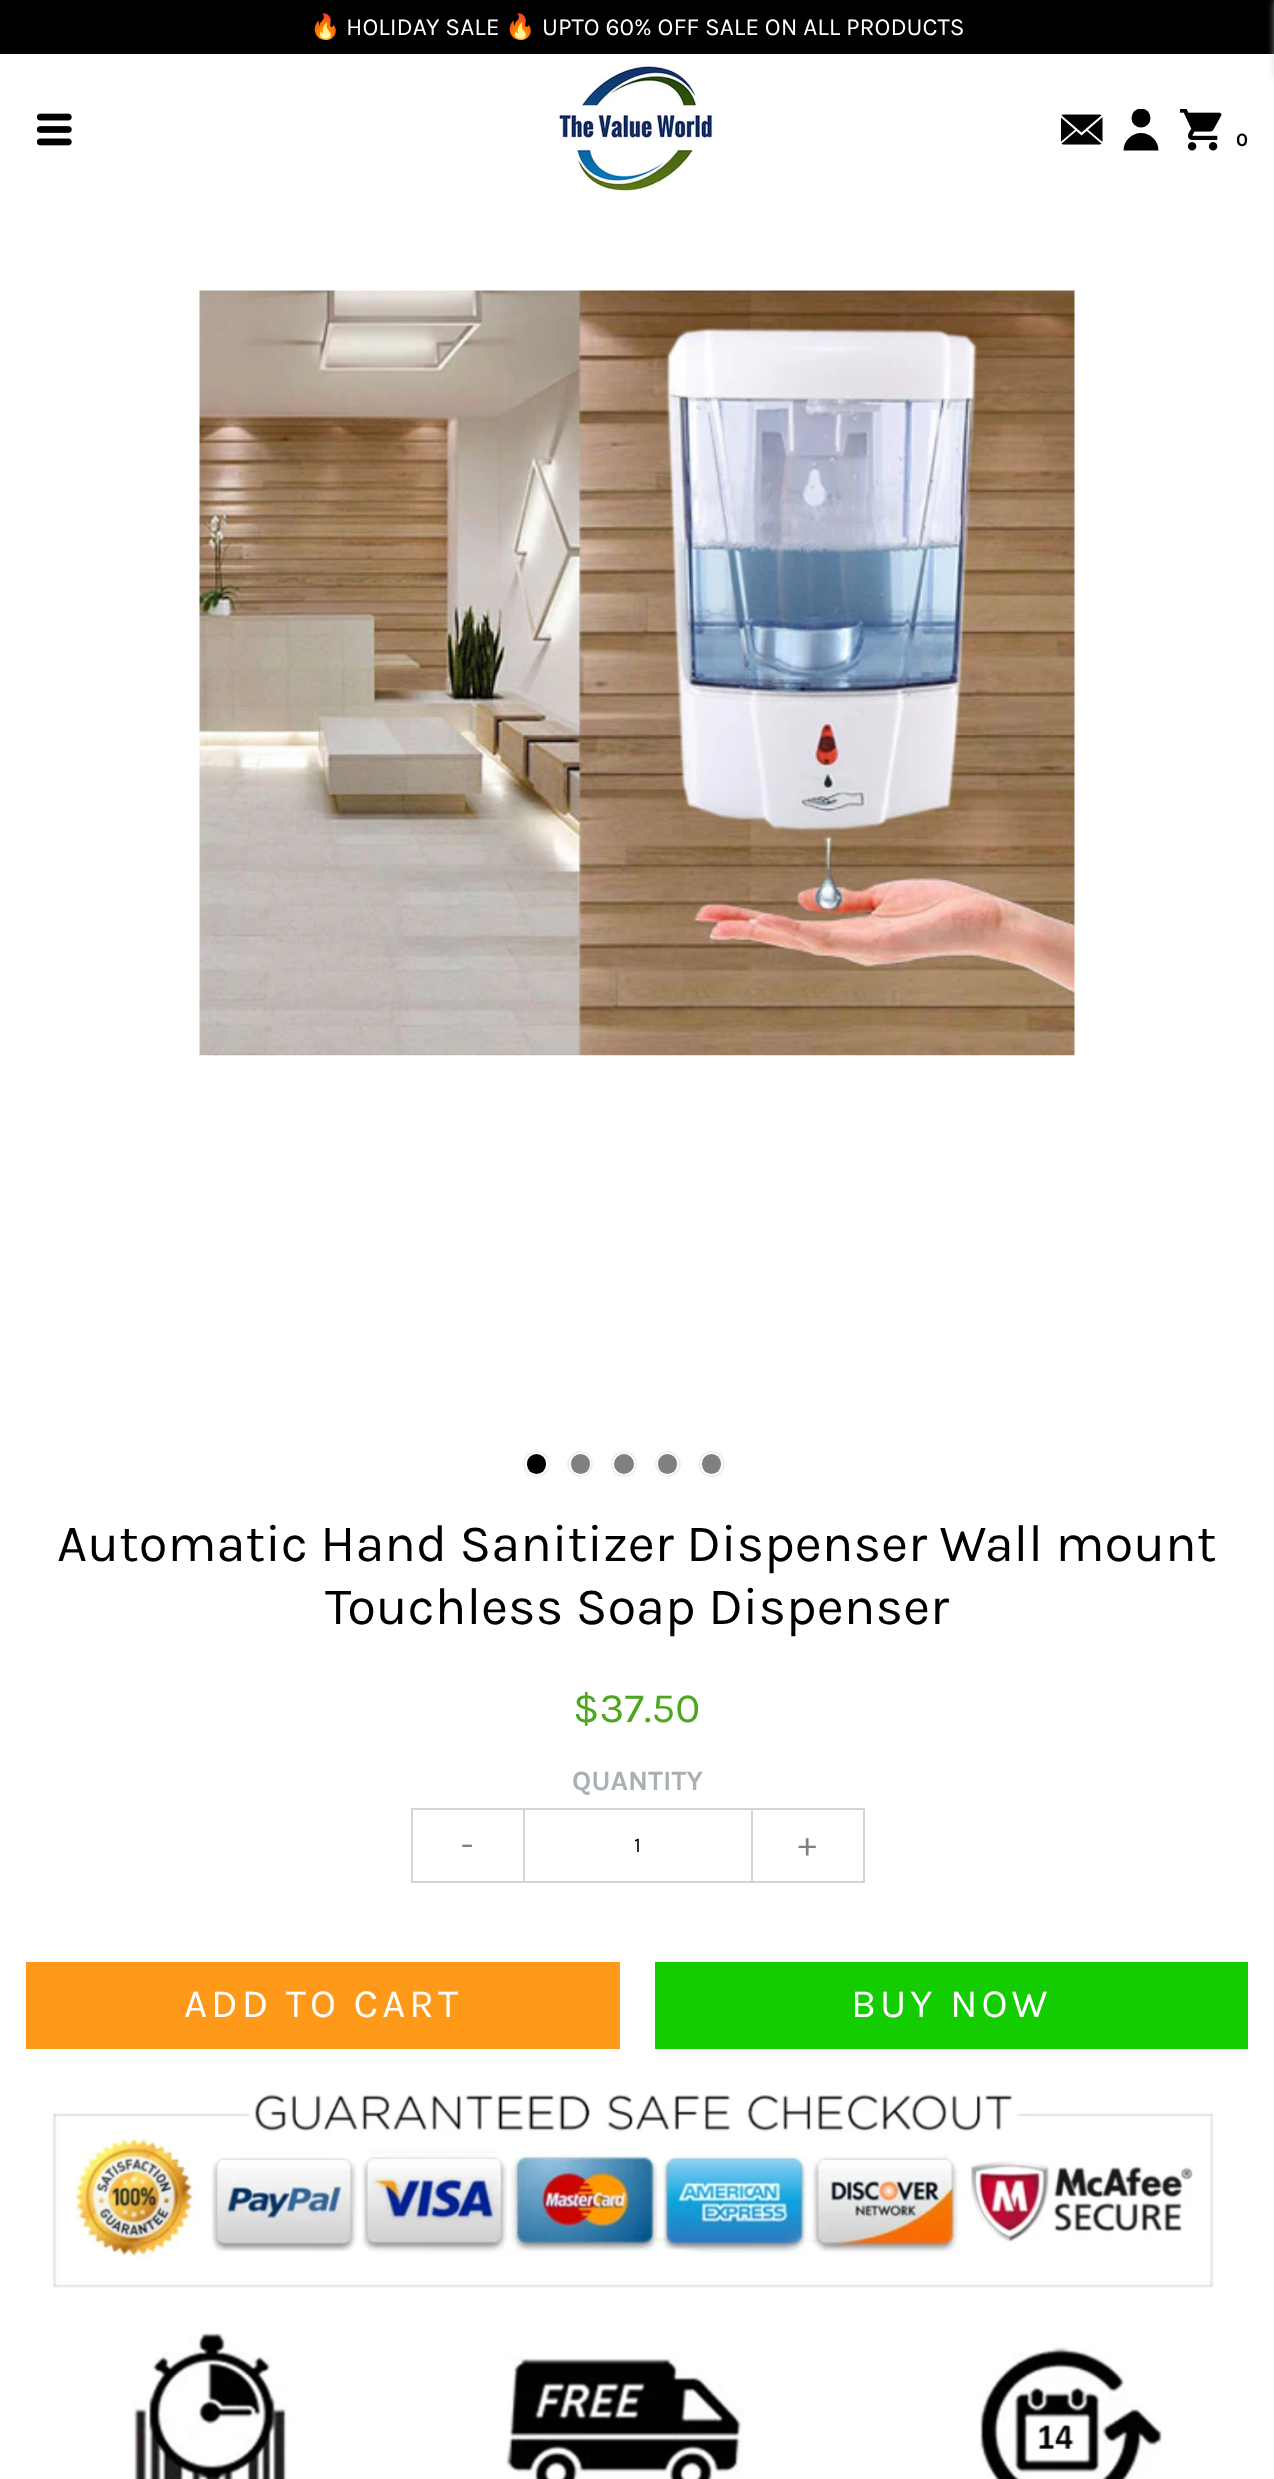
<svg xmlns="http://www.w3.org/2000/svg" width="1274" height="2479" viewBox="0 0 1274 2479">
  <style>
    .t1 { font: 24.5px Noto Color Emoji; fill: #fff; }
    .t2 { font: 24.5px Karla; fill: #fff; }
    .t3 { font: bold 19px Karla; fill: #000; }
    .t4 { font: 52.5px Karla; fill: #000; }
    .t5 { font: 42px Karla; fill: #4ea620; }
    .t6 { font: bold 28px Karla; fill: #aab1b4; }
    .t7 { font: 35px Karla; fill: #808080; }
    .t8 { font: 21px Karla; fill: #000; }
    .t9 { font: 40.25px Karla; letter-spacing: 4px; fill: #fff; }
  </style>
  <defs>
    <clipPath id="clip1"><rect x="1120" y="109" width="42" height="42"/></clipPath>
  </defs>
  <rect width="100%" height="100%" fill="#fff"/>
  <rect x="0" y="0" width="1274" height="54" fill="#000"/>
  <text x="310" y="35" class="t1">🔥</text>
  <text x="346" y="35" class="t2">HOLIDAY SALE</text>
  <text x="505" y="35" class="t1">🔥</text>
  <text x="542" y="35" class="t2">UPTO 60% OFF SALE ON ALL PRODUCTS</text>
  <image x="37" y="113" width="35" height="33" href="images/1.png"/>
  <image x="558" y="63" width="158" height="129" href="images/2.png"/>
  <image x="1061" y="114" width="42" height="31" href="images/3.png"/>
  <g clip-path="url(#clip1)">
    <circle cx="1141" cy="118" r="9.5" fill="#000"/>
  </g>
  <path d="M1141 133C1131.5 133 1123.5 141 1123.5 150.5H1158.5C1158.5 141 1150.5 133 1141 133Z" fill="#000"/>
  <image x="1180" y="109" width="42" height="42" href="images/4.png"/>
  <text x="1236" y="146" class="t3">0</text>
  <rect x="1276" y="0" width="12" height="77" fill="#ccc" filter="blur(4.5px)"/>
  <image x="199" y="290" width="876" height="766" href="images/5.png"/>
  <rect x="524" y="1452" width="25" height="24" rx="12" fill="none" stroke="#f0f0f0" stroke-width="2"/>
  <rect x="527" y="1454" width="19" height="20" rx="9.5" fill="#000"/>
  <circle cx="580" cy="1464" r="12" fill="none" stroke="#f0f0f0" stroke-width="2"/>
  <rect x="571" y="1454" width="19" height="20" rx="9.5" fill="#808080"/>
  <circle cx="624" cy="1464" r="12" fill="none" stroke="#f0f0f0" stroke-width="2"/>
  <circle cx="624" cy="1464" r="10" fill="#808080"/>
  <circle cx="668" cy="1464" r="12" fill="none" stroke="#f0f0f0" stroke-width="2"/>
  <rect x="658" y="1454" width="19" height="20" rx="9.5" fill="#808080"/>
  <rect x="699" y="1452" width="25" height="24" rx="12" fill="none" stroke="#f0f0f0" stroke-width="2"/>
  <rect x="702" y="1454" width="19" height="20" rx="9.5" fill="#808080"/>
  <text x="57" y="1561" class="t4">Automatic Hand Sanitizer Dispenser Wall mount</text>
  <text x="325" y="1624" class="t4">Touchless Soap Dispenser</text>
  <text x="573" y="1722" class="t5">$37.50</text>
  <text x="572" y="1790" class="t6">QUANTITY</text>
  <rect x="412" y="1809" width="112" height="73" fill="none" stroke="#d4d4d4" stroke-width="2"/>
  <text x="461" y="1856" class="t7">-</text>
  <rect x="524" y="1809" width="228" height="73" fill="none" stroke="#d4d4d4" stroke-width="2"/>
  <text x="634" y="1852" class="t8">1</text>
  <rect x="752" y="1809" width="112" height="73" fill="none" stroke="#d4d4d4" stroke-width="2"/>
  <text x="798" y="1856" class="t7">+</text>
  <rect x="26" y="1962" width="594" height="87" fill="#ff991a"/>
  <text x="184" y="2017" class="t9">ADD TO CART</text>
  <rect x="655" y="1962" width="593" height="87" fill="#13cd00"/>
  <text x="851" y="2017" class="t9">BUY NOW</text>
  <image x="52" y="2093" width="1162" height="195" href="images/6.png"/>
  <image x="133" y="2332" width="1029" height="147" href="images/7.png"/>
</svg>
